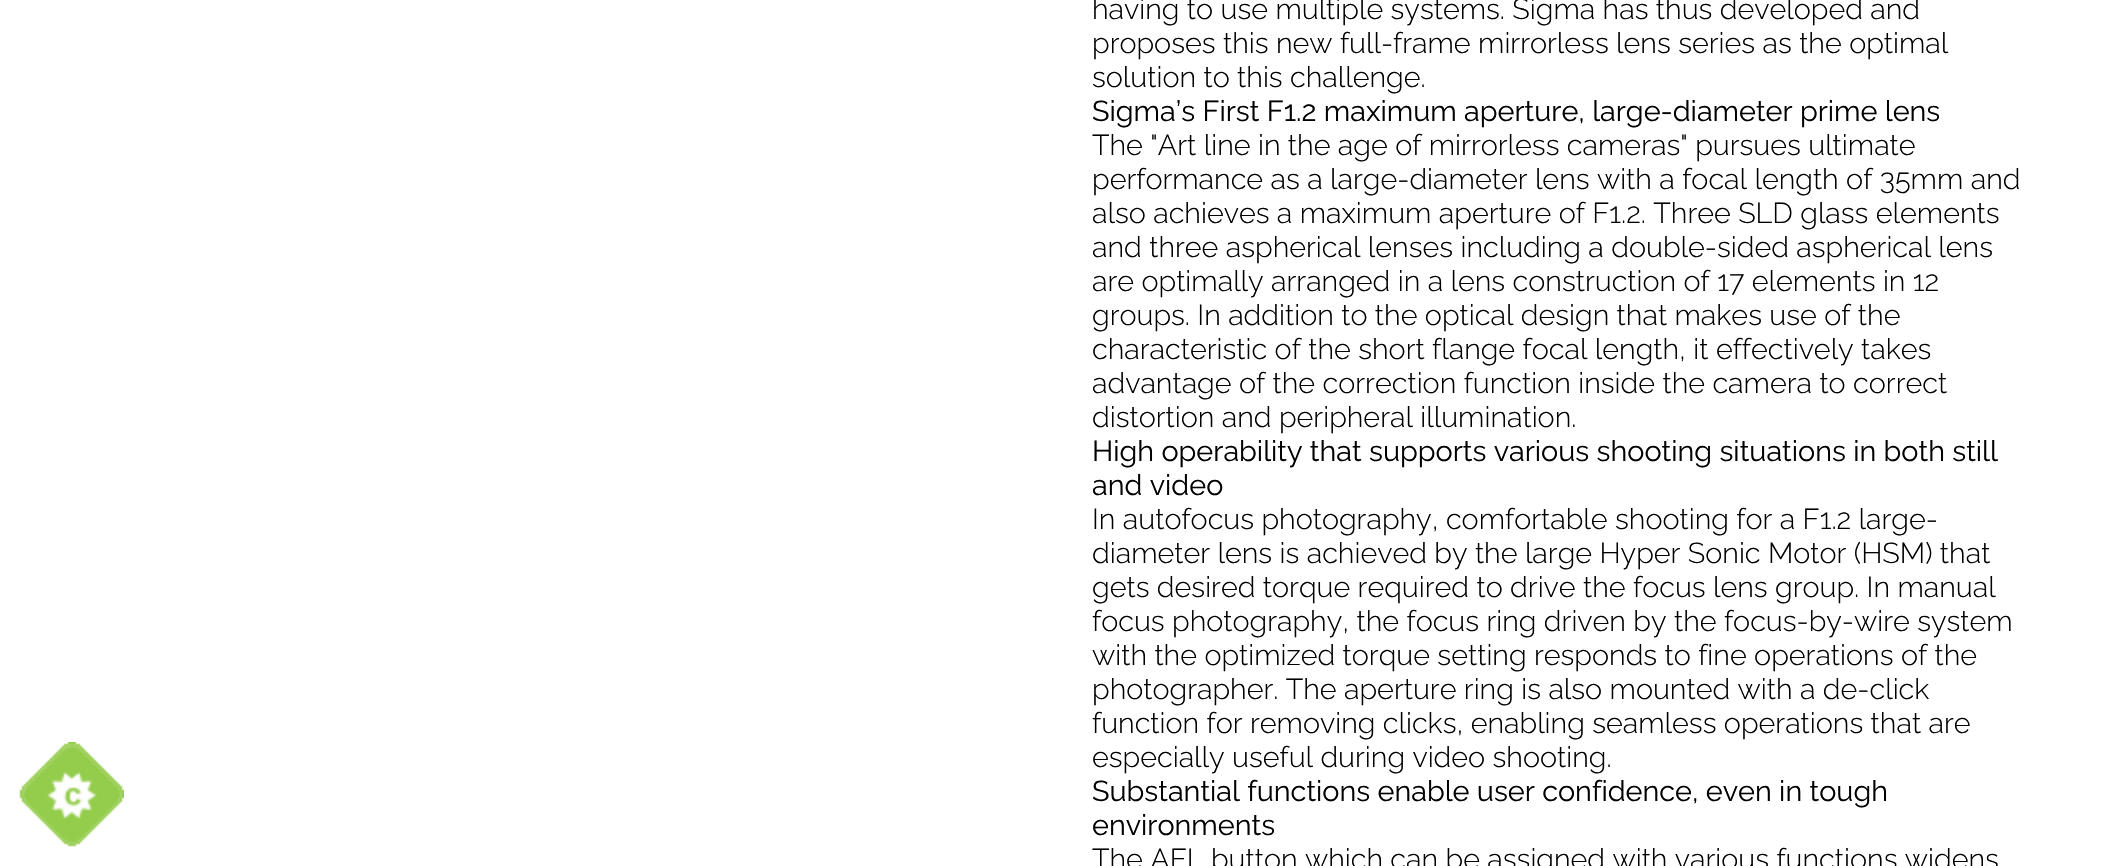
#include "include/core/SkBlurTypes.h"
#include "include/core/SkCanvas.h"
#include "include/core/SkData.h"
#include "include/core/SkFont.h"
#include "include/core/SkFontMgr.h"
#include "include/core/SkImage.h"
#include "include/core/SkMaskFilter.h"
#include "include/core/SkPaint.h"
#include "include/core/SkPathBuilder.h"
#include "include/core/SkTextBlob.h"
#include "include/effects/SkDashPathEffect.h"
#include "include/effects/SkGradientShader.h"
#include "include/utils/SkParsePath.h"

extern sk_sp<SkFontMgr> fontMgr;

void draw(SkCanvas* canvas) {
    SkPaint p;
    p.setAntiAlias(true);
    auto font = [&](const char* family, int weight, float size, bool italic = false) {
        SkFontStyle style(weight, SkFontStyle::kNormal_Width,
            italic ? SkFontStyle::kItalic_Slant : SkFontStyle::kUpright_Slant);
        SkFont result(fontMgr->matchFamilyStyle(family, style), size);
        result.setSubpixel(true);
        return result;
    };
    auto drawPhoto = [&](const char* path, float l, float t, float r, float b) {
        auto image = SkImages::DeferredFromEncodedData(SkData::MakeFromFileName(path));
        canvas->drawImageRect(image, SkRect::MakeLTRB(l, t, r, b), SkSamplingOptions());
    };
    canvas->clear(0xFFFFFFFF);
    drawPhoto("media/1.png", 19, 742, 124, 847);
    auto font1 = font("Raleway", 300, 28.8f);
    p.setColor(0xFF000000);
    {
        const struct { const char* s; float x, y; } items[] = {
            {"having to use multiple systems. Sigma has thus developed and", 1092, 19},
            {"proposes this new full-frame mirrorless lens series as the optimal", 1092, 53},
            {"solution to this challenge.", 1092, 87},
        };
        for (auto [s, x, y] : items) {
            canvas->drawString(s, x, y, font1, p);
        }
    }
    auto font2 = font("Raleway", 400, 28.8f);
    canvas->drawString("Sigma’s First F1.2 maximum aperture, large-diameter prime lens", 1092, 121, font2, p);
    {
        const struct { const char* s; float x, y; } items[] = {
            {"The \"Art line in the age of mirrorless cameras\" pursues ultimate", 1092, 155},
            {"performance as a large-diameter lens with a focal length of 35mm and", 1092, 189},
            {"also achieves a maximum aperture of F1.2. Three SLD glass elements", 1092, 223},
            {"and three aspherical lenses including a double-sided aspherical lens", 1092, 257},
            {"are optimally arranged in a lens construction of 17 elements in 12", 1092, 291},
            {"groups. In addition to the optical design that makes use of the", 1092, 325},
            {"characteristic of the short flange focal length, it effectively takes", 1092, 359},
            {"advantage of the correction function inside the camera to correct", 1092, 393},
            {"distortion and peripheral illumination.", 1092, 427},
        };
        for (auto [s, x, y] : items) {
            canvas->drawString(s, x, y, font1, p);
        }
    }
    canvas->drawString("High operability that supports various shooting situations in both still", 1092, 461, font2, p);
    canvas->drawString("and video", 1092, 495, font2, p);
    {
        const struct { const char* s; float x, y; } items[] = {
            {"In autofocus photography, comfortable shooting for a F1.2 large-", 1092, 529},
            {"diameter lens is achieved by the large Hyper Sonic Motor (HSM) that", 1092, 563},
            {"gets desired torque required to drive the focus lens group. In manual", 1092, 597},
            {"focus photography, the focus ring driven by the focus-by-wire system", 1092, 631},
            {"with the optimized torque setting responds to fine operations of the", 1092, 665},
            {"photographer. The aperture ring is also mounted with a de-click", 1092, 699},
            {"function for removing clicks, enabling seamless operations that are", 1092, 733},
            {"especially useful during video shooting.", 1092, 767},
        };
        for (auto [s, x, y] : items) {
            canvas->drawString(s, x, y, font1, p);
        }
    }
    canvas->drawString("Substantial functions enable user confidence, even in tough", 1092, 801, font2, p);
    canvas->drawString("environments", 1092, 835, font2, p);
    canvas->drawString("The AFL button which can be assigned with various functions widens", 1092, 869, font1, p);
}
